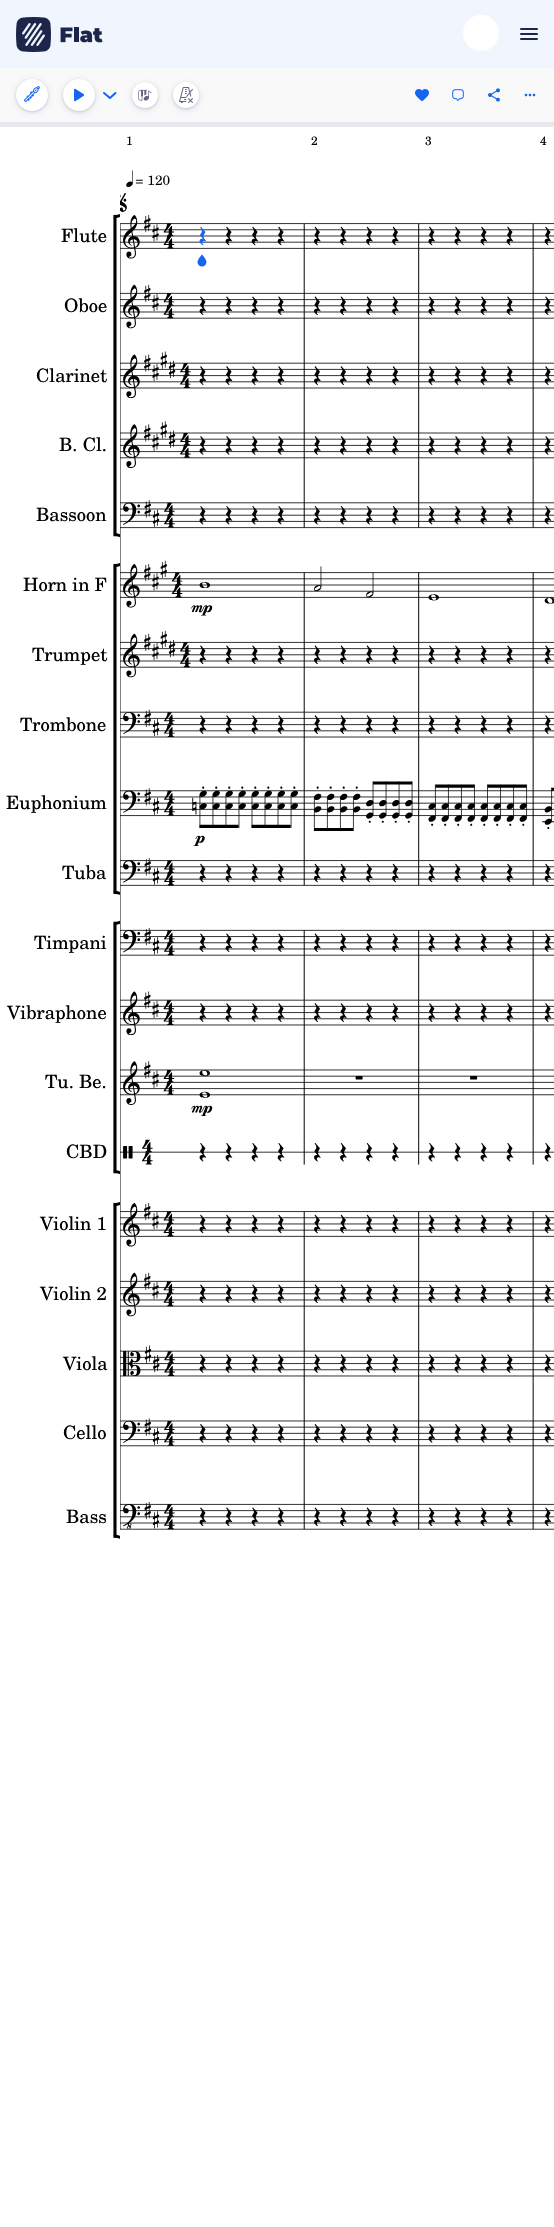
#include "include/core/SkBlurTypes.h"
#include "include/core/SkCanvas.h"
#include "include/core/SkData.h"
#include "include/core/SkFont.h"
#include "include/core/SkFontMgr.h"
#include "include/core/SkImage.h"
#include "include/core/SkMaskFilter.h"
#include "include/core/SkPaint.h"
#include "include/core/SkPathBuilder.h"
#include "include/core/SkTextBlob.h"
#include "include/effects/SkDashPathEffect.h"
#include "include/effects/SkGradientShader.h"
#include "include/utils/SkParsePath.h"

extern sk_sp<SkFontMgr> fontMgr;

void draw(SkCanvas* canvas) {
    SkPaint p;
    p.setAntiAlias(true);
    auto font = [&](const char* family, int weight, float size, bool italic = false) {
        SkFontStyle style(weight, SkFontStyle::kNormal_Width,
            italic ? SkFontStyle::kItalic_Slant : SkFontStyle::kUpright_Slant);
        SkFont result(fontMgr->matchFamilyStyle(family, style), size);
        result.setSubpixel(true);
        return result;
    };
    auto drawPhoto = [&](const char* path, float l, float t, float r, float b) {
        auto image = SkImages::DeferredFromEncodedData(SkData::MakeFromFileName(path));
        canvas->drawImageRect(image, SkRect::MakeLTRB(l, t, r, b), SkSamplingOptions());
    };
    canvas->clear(0xFFFFFFFF);
    p.setColor(0xFFF1F6FE);
    canvas->drawRect(SkRect::MakeLTRB(0, 0, 554, 68), p);
    drawPhoto("media/1.png", 16, 17, 103, 52);
    p.setColor(0xFFFFFFFF);
    canvas->drawCircle(481, 33, 18, p);
    p.setColor(0xFF1C264A);
    canvas->drawRoundRect(SkRect::MakeLTRB(520, 28, 538, 30), 1, 1, p);
    canvas->drawRoundRect(SkRect::MakeLTRB(520, 33, 538, 35), 1, 1, p);
    canvas->drawRoundRect(SkRect::MakeLTRB(520, 38, 538, 40), 1, 1, p);
    p.setColor(0xFFF9F9FA);
    canvas->drawRect(SkRect::MakeLTRB(0, 68, 554, 122), p);
    p.setColor(0x1A28304F);
    p.setMaskFilter(SkMaskFilter::MakeBlur(kNormal_SkBlurStyle, 4));
    canvas->drawRoundRect(SkRect::MakeLTRB(63, 81, 95, 113), 16, 16, p);
    p.setMaskFilter(nullptr);
    p.setMaskFilter(SkMaskFilter::MakeBlur(kNormal_SkBlurStyle, 4));
    canvas->drawRoundRect(SkRect::MakeLTRB(132, 84, 158, 110), 13, 13, p);
    p.setMaskFilter(nullptr);
    p.setMaskFilter(SkMaskFilter::MakeBlur(kNormal_SkBlurStyle, 4));
    canvas->drawRoundRect(SkRect::MakeLTRB(173, 84, 199, 110), 13, 13, p);
    p.setMaskFilter(nullptr);
    p.setColor(0xFFE7E8EC);
    canvas->drawRect(SkRect::MakeLTRB(0, 122, 554, 127), p);
    p.setColor(0x1A28304F);
    p.setMaskFilter(SkMaskFilter::MakeBlur(kNormal_SkBlurStyle, 4));
    canvas->drawRoundRect(SkRect::MakeLTRB(16, 80, 48, 112), 16, 16, p);
    p.setMaskFilter(nullptr);
    p.setColor(0x3328304F);
    p.setMaskFilter(SkMaskFilter::MakeBlur(kNormal_SkBlurStyle, 1.5f));
    canvas->drawRoundRect(SkRect::MakeLTRB(16, 80, 48, 112), 16, 16, p);
    p.setMaskFilter(nullptr);
    p.setColor(0xFFFFFFFF);
    canvas->drawCircle(32, 95, 16, p);
    drawPhoto("media/2.png", 24, 86, 40, 102);
    p.setColor(0x3328304F);
    p.setMaskFilter(SkMaskFilter::MakeBlur(kNormal_SkBlurStyle, 1.5f));
    canvas->drawRoundRect(SkRect::MakeLTRB(63, 80, 95, 112), 16, 16, p);
    p.setMaskFilter(nullptr);
    p.setColor(0xFFFFFFFF);
    canvas->drawCircle(79, 95, 16, p);
    drawPhoto("media/3.png", 74, 88, 85, 102);
    p.setStyle(SkPaint::kStroke_Style);
    p.setStrokeWidth(2);
    p.setStrokeCap(SkPaint::kRound_Cap);
    p.setStrokeJoin(SkPaint::kRound_Join);
    p.setColor(0xFF1565EF);
    canvas->drawPath(SkPathBuilder().moveTo(104, 93).lineTo(110, 98).lineTo(115.5f, 93).detach(), p);
    p.setStyle(SkPaint::kFill_Style);
    p.setColor(0x3328304F);
    p.setMaskFilter(SkMaskFilter::MakeBlur(kNormal_SkBlurStyle, 1.5f));
    canvas->drawRoundRect(SkRect::MakeLTRB(132, 83, 158, 109), 13, 13, p);
    p.setMaskFilter(nullptr);
    p.setColor(0xFFFFFFFF);
    canvas->drawCircle(145, 95, 13, p);
    drawPhoto("media/4.png", 138, 89, 152, 101);
    p.setColor(0x3328304F);
    p.setMaskFilter(SkMaskFilter::MakeBlur(kNormal_SkBlurStyle, 1.5f));
    canvas->drawRoundRect(SkRect::MakeLTRB(173, 83, 199, 109), 13, 13, p);
    p.setMaskFilter(nullptr);
    p.setColor(0xFFFFFFFF);
    canvas->drawCircle(186, 95, 13, p);
    drawPhoto("media/5.png", 179, 87, 193, 103);
    drawPhoto("media/6.png", 415, 89, 429, 101);
    drawPhoto("media/7.png", 452, 89, 464, 101);
    drawPhoto("media/8.png", 488, 88, 500, 102);
    drawPhoto("media/9.png", 524, 93, 536, 97);
    auto font1 = font("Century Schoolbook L", 400, 12);
    p.setColor(0xFF000000);
    {
        const struct { const char* s; float x, y; } items[] = {
            {"1", 126, 145},
            {"2", 311, 145},
            {"3", 425, 145},
            {"4", 540, 145},
        };
        for (auto [s, x, y] : items) {
            canvas->drawString(s, x, y, font1, p);
        }
    }
    {
        const SkColor colors[] = {0xFF919191, 0xFFFFFFFF};
        const float stops[] = {0, 1};
        SkMatrix m = SkMatrix::Translate(120, 1192).preScale(11, 1040);
        p.setShader(SkGradientShader::MakeRadial({0, 0}, 1, colors, stops, 2, SkTileMode::kClamp, 0, &m));
        p.setAlpha(255);
    }
    canvas->drawRect(SkRect::MakeLTRB(129, 716, 131, 1668), p);
    {
        const SkColor colors[] = {0xFFFFFFFF, 0xFFFFFFFF, 0x80FFFFFF};
        const float stops[] = {0, 0.02f, 0.05f};
        const SkPoint ends[] = {{120, 1192}, {554, 1192}};
        p.setShader(SkGradientShader::MakeLinear(ends, colors, stops, 3, SkTileMode::kClamp));
        p.setAlpha(255);
    }
    canvas->drawRect(SkRect::MakeLTRB(129, 716, 131, 1668), p);
    drawPhoto("media/10.png", 120, 170, 554, 1530);
    drawPhoto("media/11.png", 113, 214, 120, 1539);
    auto font2 = font("Century Schoolbook L", 400, 18.5f);
    p.setShader(nullptr);
    p.setColor(0xFF000000);
    {
        const struct { const char* s; float x, y; } items[] = {
            {"Flute", 61, 242},
            {"Oboe", 64, 312},
            {"Clarinet", 36, 382},
            {"B. Cl.", 59, 451},
            {"Bassoon", 36, 521},
            {"Horn in F", 23, 591},
            {"Trumpet", 32, 661},
            {"Trombone", 20, 731},
            {"Euphonium", 6, 809},
            {"Tuba", 62, 879},
            {"Timpani", 34, 949},
            {"Vibraphone", 7, 1019},
            {"Tu. Be.", 45, 1088},
            {"CBD", 66, 1158},
            {"Violin 1", 40, 1230},
            {"Violin 2", 40, 1300},
            {"Viola", 63, 1370},
            {"Cello", 63, 1439},
            {"Bass", 66, 1523},
        };
        for (auto [s, x, y] : items) {
            canvas->drawString(s, x, y, font2, p);
        }
    }
}
